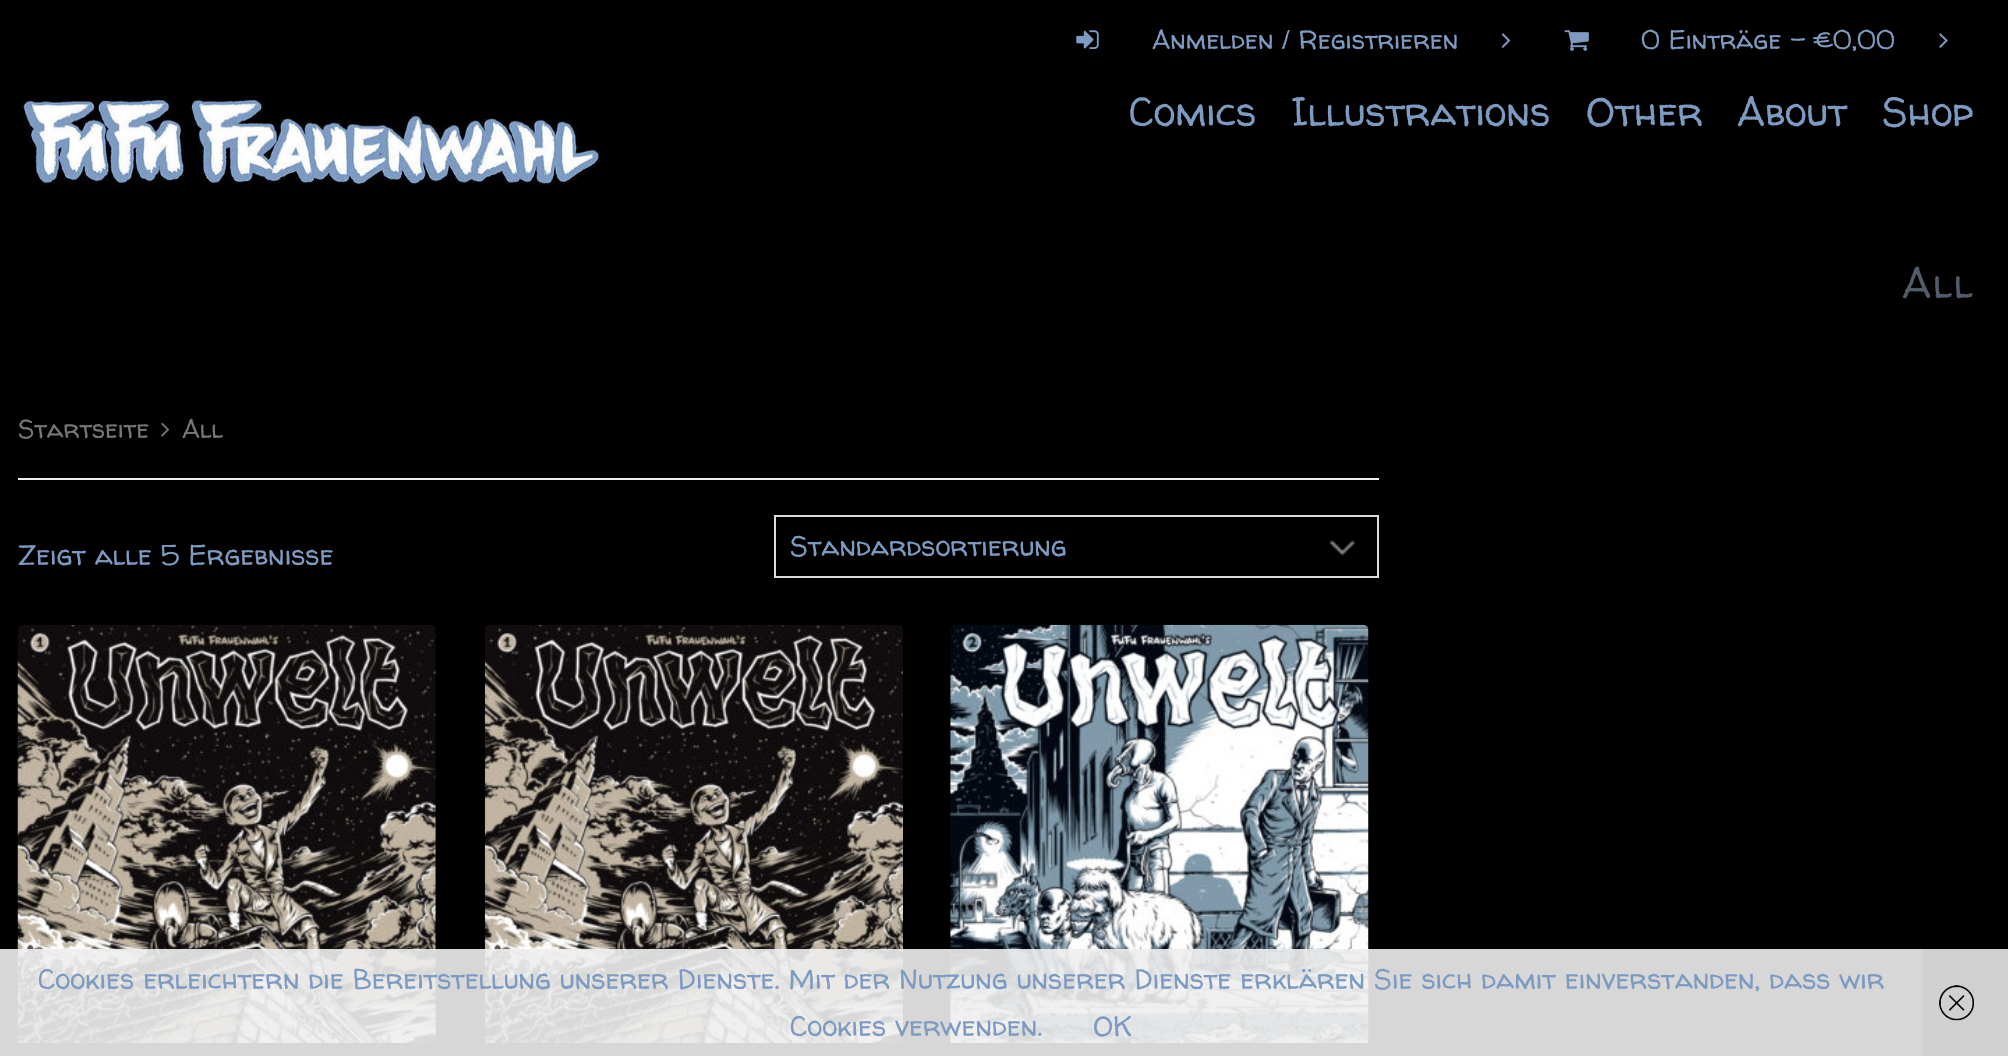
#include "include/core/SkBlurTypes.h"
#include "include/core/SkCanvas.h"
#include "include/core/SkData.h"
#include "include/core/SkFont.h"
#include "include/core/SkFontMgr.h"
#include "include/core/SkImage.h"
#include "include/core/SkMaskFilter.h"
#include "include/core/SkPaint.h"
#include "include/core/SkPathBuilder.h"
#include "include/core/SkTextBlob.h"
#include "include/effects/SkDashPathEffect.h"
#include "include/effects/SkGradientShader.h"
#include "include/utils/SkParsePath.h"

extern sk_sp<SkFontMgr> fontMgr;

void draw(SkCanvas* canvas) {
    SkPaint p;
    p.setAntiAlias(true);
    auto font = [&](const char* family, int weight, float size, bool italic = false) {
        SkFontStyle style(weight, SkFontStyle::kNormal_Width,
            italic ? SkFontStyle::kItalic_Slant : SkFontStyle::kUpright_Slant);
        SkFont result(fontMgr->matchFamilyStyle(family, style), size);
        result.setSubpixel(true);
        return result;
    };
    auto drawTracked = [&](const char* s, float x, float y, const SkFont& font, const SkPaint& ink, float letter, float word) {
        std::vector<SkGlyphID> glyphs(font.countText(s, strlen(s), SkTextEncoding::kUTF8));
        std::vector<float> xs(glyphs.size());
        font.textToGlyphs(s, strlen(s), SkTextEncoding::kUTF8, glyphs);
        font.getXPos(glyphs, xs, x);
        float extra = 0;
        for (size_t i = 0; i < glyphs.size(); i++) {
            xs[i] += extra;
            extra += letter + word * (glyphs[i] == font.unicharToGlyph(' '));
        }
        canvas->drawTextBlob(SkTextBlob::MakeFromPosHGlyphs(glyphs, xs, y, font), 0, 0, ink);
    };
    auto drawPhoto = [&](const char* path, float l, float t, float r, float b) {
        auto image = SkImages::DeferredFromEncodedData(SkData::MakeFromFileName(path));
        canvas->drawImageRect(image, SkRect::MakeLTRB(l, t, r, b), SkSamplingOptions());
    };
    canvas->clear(0xFF000000);
    drawPhoto("media/1.png", 1076, 30, 1099, 49);
    auto font1 = font("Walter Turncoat", 400, 26.25f);
    p.setColor(0xFF7D9BC1);
    canvas->drawString("Anmelden / Registrieren", 1152, 49, font1, p);
    drawPhoto("media/2.png", 1501, 33, 1511, 48);
    drawPhoto("media/3.png", 1564, 30, 1589, 51);
    {
        const struct { const char* s; float x, y; } items[] = {
            {"0 Einträge", 1641, 49},
            {"-", 1790, 49},
            {"€0,00", 1813, 49},
        };
        for (auto [s, x, y] : items) {
            canvas->drawString(s, x, y, font1, p);
        }
    }
    drawPhoto("media/4.png", 1939, 33, 1948, 48);
    drawPhoto("media/5.png", 22, 96, 604, 186);
    auto font2 = font("Walter Turncoat", 400, 40.25f);
    {
        const struct { const char* s; float x, y; } items[] = {
            {"Comics", 1129, 126},
            {"Illustrations", 1291, 126},
            {"Other", 1586, 126},
            {"About", 1737, 126},
            {"Shop", 1882, 126},
        };
        for (auto [s, x, y] : items) {
            canvas->drawString(s, x, y, font2, p);
        }
    }
    auto font3 = font("Walter Turncoat", 400, 42);
    p.setColor(0xFF515B69);
    drawTracked("All", 1902, 298, font3, p, 2, 0);
    p.setColor(0xFFEEEEEE);
    canvas->drawRect(SkRect::MakeLTRB(18, 478, 1379, 480), p);
    auto font4 = font("Walter Turncoat", 400, 25.75f);
    p.setColor(0xFF767676);
    canvas->drawString("Startseite", 18, 438, font4, p);
    drawPhoto("media/6.png", 161, 422, 170, 437);
    canvas->drawString("All", 182, 438, font4, p);
    auto font5 = font("Walter Turncoat", 400, 28);
    p.setColor(0xFF7D9BC1);
    canvas->drawString("Zeigt alle 5 Ergebnisse", 18, 565, font5, p);
    drawPhoto("media/7.png", 1329, 540, 1355, 556);
    p.setStyle(SkPaint::kStroke_Style);
    p.setStrokeWidth(2);
    p.setColor(0xFFDDDDDD);
    canvas->drawRect(SkRect::MakeLTRB(775, 516, 1378, 577), p);
    p.setStyle(SkPaint::kFill_Style);
    p.setColor(0xFF7D9BC1);
    canvas->drawString("Standardsortierung", 790, 556, font5, p);
    drawPhoto("media/8.png", 17, 624, 436, 1043);
    drawPhoto("media/9.png", 484, 624, 903, 1043);
    drawPhoto("media/10.png", 950, 624, 1369, 1043);
    p.setColor(0xE6EEEEEE);
    canvas->drawRect(SkRect::MakeLTRB(0, 949, 1922, 1056), p);
    p.setColor(0xFF7D9BC1);
    {
        const struct { const char* s; float x, y; } items[] = {
            {"Cookies erleichtern die Bereitstellung unserer Dienste. Mit der Nutzung unserer Dienste erklären Sie sich damit einverstanden, dass wir", 38, 989},
            {"Cookies verwenden.", 790, 1036},
            {"OK", 1093, 1036},
        };
        for (auto [s, x, y] : items) {
            canvas->drawString(s, x, y, font5, p);
        }
    }
    p.setColor(0xFFD0D0D0);
    canvas->drawRect(SkRect::MakeLTRB(1922, 949, 2008, 1056), p);
    drawPhoto("media/11.png", 1939, 985, 1974, 1021);
}
